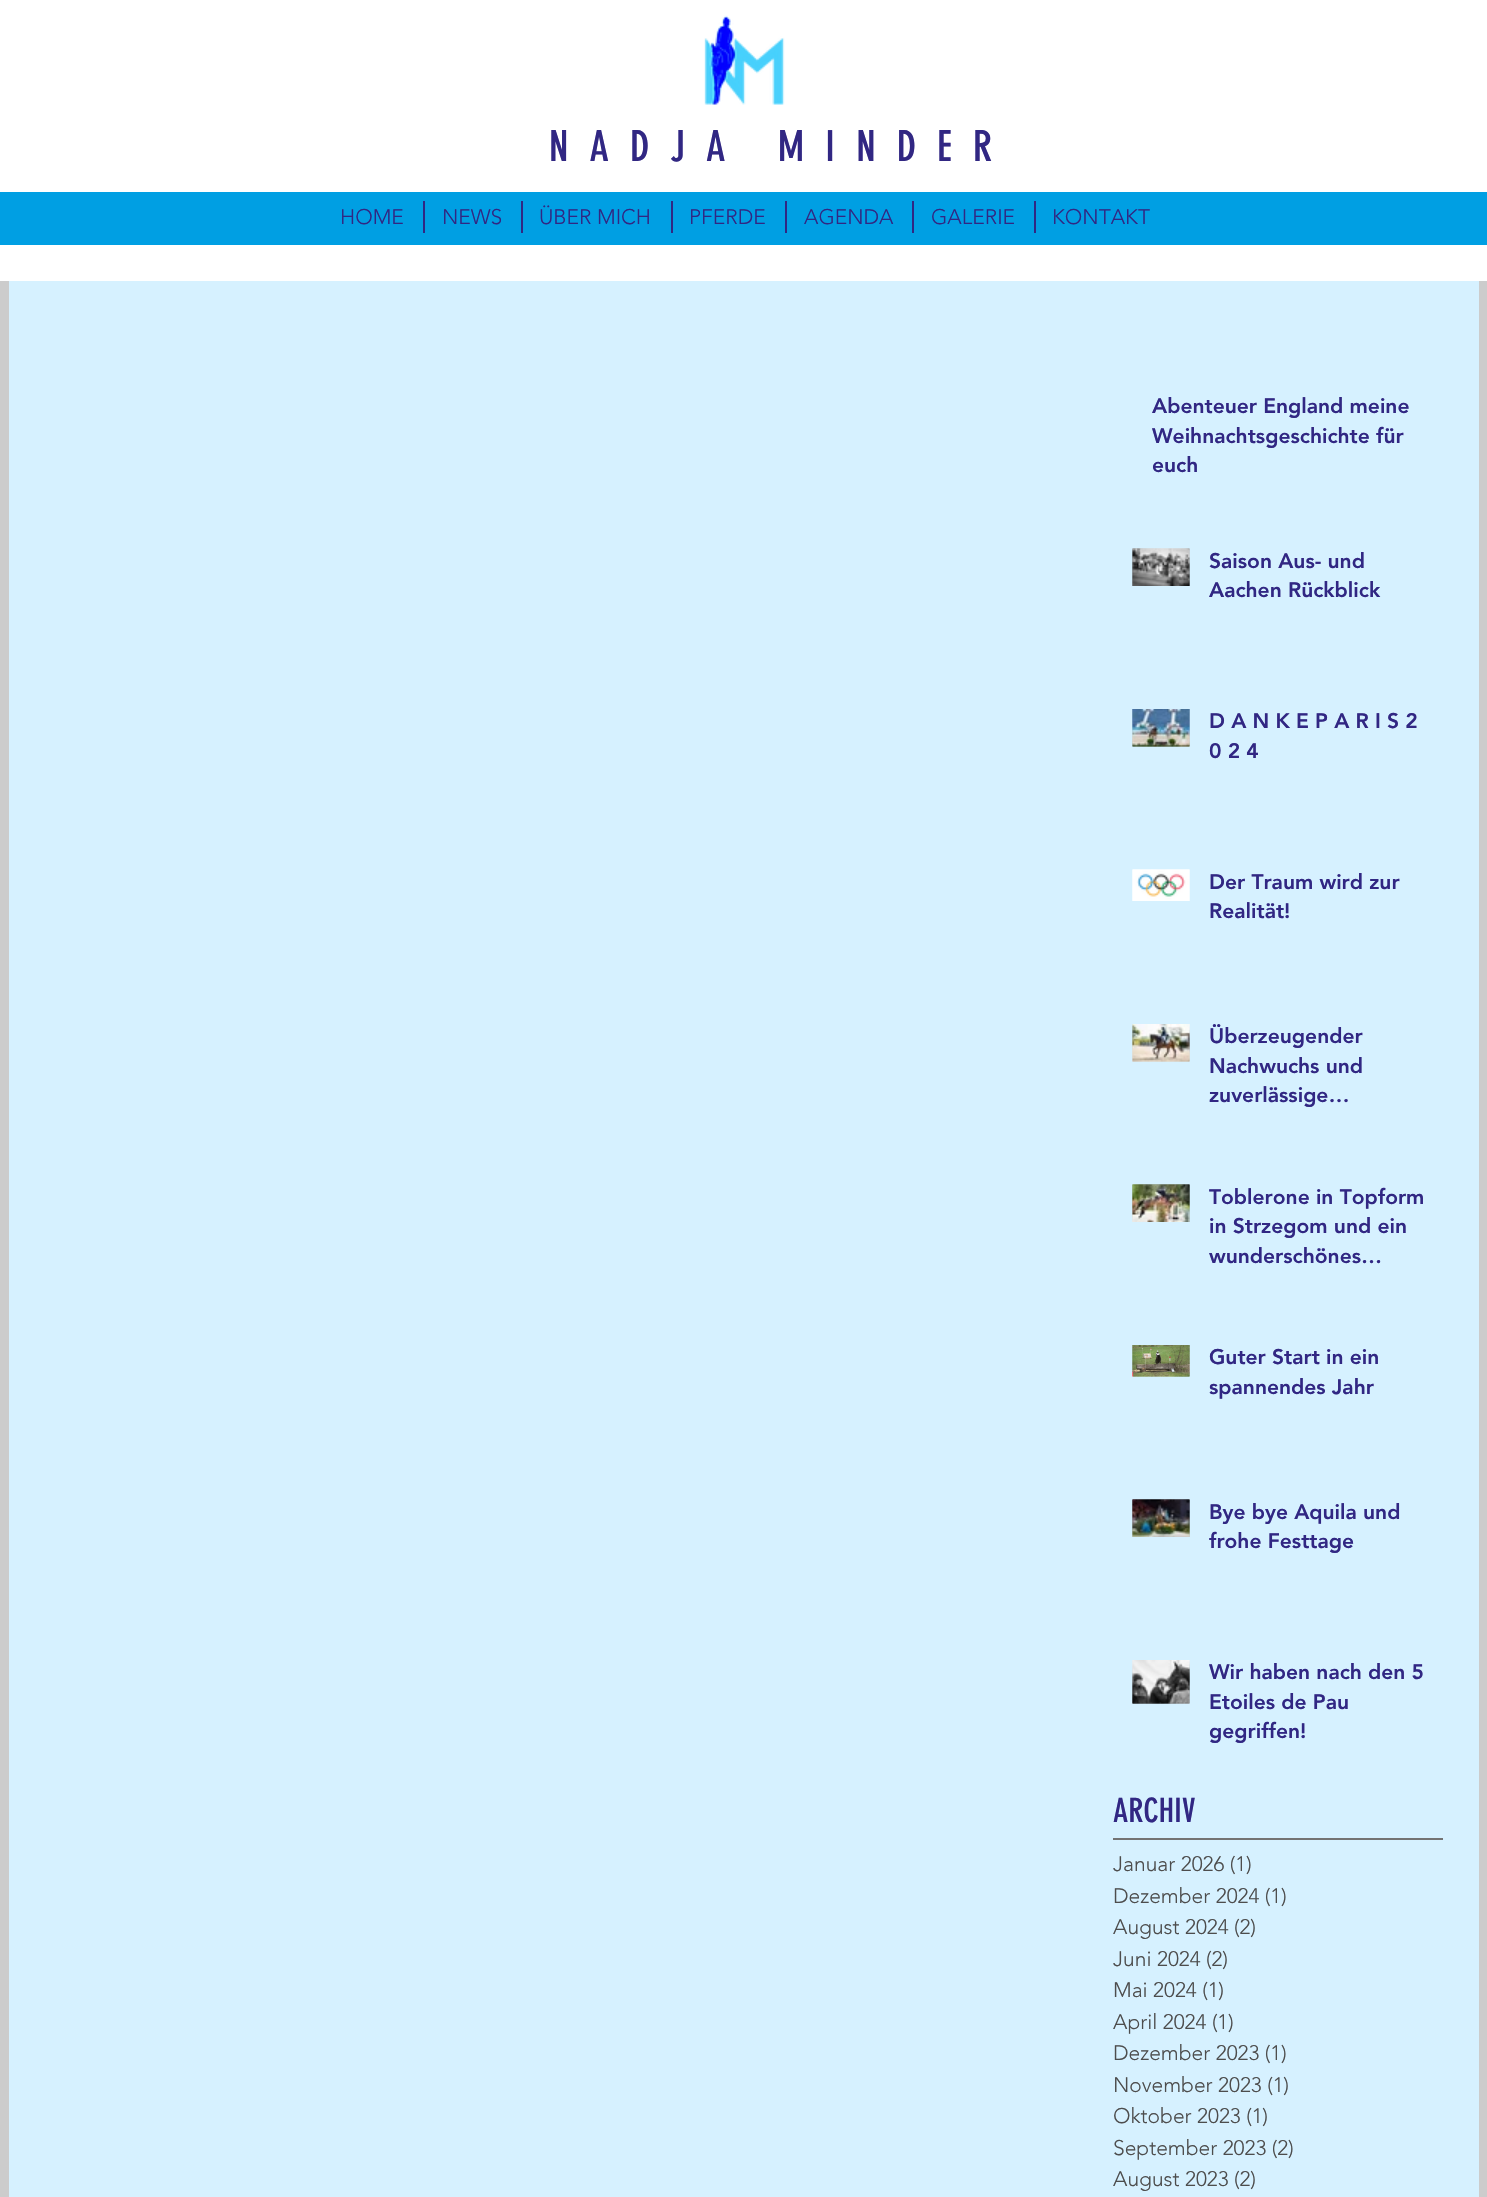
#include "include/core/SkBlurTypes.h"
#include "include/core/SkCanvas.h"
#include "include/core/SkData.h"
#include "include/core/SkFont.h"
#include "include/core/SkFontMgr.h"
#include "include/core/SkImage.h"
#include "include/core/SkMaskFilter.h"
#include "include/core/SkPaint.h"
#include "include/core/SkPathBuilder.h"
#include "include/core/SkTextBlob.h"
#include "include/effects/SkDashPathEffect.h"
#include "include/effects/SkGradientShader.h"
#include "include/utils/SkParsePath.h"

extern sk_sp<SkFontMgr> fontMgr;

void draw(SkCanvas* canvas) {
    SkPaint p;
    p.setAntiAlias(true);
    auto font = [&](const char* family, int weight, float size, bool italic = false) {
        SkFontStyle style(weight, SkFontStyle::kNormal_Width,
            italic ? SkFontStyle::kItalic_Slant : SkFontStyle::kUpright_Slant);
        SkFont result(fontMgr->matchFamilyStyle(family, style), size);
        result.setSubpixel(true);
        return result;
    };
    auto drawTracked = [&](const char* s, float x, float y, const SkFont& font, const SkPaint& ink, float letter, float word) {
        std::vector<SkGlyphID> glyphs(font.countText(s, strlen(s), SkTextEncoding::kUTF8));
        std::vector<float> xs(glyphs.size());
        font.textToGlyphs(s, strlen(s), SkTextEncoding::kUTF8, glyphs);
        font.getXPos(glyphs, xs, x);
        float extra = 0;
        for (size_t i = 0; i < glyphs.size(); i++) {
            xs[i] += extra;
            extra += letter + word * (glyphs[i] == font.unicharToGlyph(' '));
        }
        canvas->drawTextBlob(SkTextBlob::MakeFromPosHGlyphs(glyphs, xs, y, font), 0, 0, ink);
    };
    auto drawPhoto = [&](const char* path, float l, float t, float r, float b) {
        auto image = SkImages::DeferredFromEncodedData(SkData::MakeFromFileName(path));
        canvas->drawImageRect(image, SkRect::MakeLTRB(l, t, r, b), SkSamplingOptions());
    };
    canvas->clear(0xFFCCCCCC);
    p.setColor(0xFFFFFFFF);
    canvas->drawRect(SkRect::MakeLTRB(0, 0, 1487, 281), p);
    drawPhoto("media/1.png", 704, 15, 785, 105);
    auto font1 = font("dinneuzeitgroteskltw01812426", 400, 42);
    p.setColor(0xFF312783);
    drawTracked("NADJA MINDER", 549, 161, font1, p, 21, 0);
    p.setColor(0xFF009FE3);
    canvas->drawRect(SkRect::MakeLTRB(0, 192, 1487, 245), p);
    auto font2 = font("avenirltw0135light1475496", 300, 21);
    p.setColor(0xFF312783);
    canvas->drawString("HOME", 340, 224, font2, p);
    canvas->drawRect(SkRect::MakeLTRB(423, 201, 425, 233), p);
    canvas->drawString("NEWS", 442, 224, font2, p);
    canvas->drawRect(SkRect::MakeLTRB(521, 201, 523, 233), p);
    canvas->drawString("ÜBER MICH", 539, 224, font2, p);
    canvas->drawRect(SkRect::MakeLTRB(671, 201, 673, 233), p);
    canvas->drawString("PFERDE", 689, 224, font2, p);
    canvas->drawRect(SkRect::MakeLTRB(785, 201, 787, 233), p);
    canvas->drawString("AGENDA", 804, 224, font2, p);
    canvas->drawRect(SkRect::MakeLTRB(912, 201, 914, 233), p);
    canvas->drawString("GALERIE", 931, 224, font2, p);
    canvas->drawRect(SkRect::MakeLTRB(1034, 201, 1036, 233), p);
    canvas->drawString("KONTAKT", 1052, 224, font2, p);
    p.setColor(0xFFD6F1FF);
    canvas->drawRect(SkRect::MakeLTRB(9, 281, 1479, 2197), p);
    auto font3 = font("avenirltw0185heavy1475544", 900, 21);
    p.setColor(0xFF312783);
    {
        const struct { const char* s; float x, y; } items[] = {
            {"Abenteuer England meine", 1152, 413},
            {"Weihnachtsgeschichte für", 1152, 443},
            {"euch", 1152, 472},
        };
        for (auto [s, x, y] : items) {
            canvas->drawString(s, x, y, font3, p);
        }
    }
    drawPhoto("media/2.png", 1132, 548, 1190, 586);
    drawPhoto("media/3.png", 1132, 548, 1190, 586);
    canvas->drawString("Saison Aus- und", 1209, 568, font3, p);
    canvas->drawString("Aachen Rückblick", 1209, 597, font3, p);
    drawPhoto("media/4.png", 1132, 709, 1190, 747);
    drawPhoto("media/5.png", 1132, 709, 1190, 747);
    canvas->drawString("D A N K E P A R I S 2", 1209, 728, font3, p);
    canvas->drawString("0 2 4", 1209, 758, font3, p);
    drawPhoto("media/6.png", 1132, 869, 1190, 901);
    drawPhoto("media/7.png", 1132, 869, 1190, 901);
    canvas->drawString("Der Traum wird zur", 1209, 889, font3, p);
    canvas->drawString("Realität!", 1209, 918, font3, p);
    drawPhoto("media/8.png", 1132, 1024, 1190, 1062);
    drawPhoto("media/9.png", 1132, 1024, 1190, 1062);
    {
        const struct { const char* s; float x, y; } items[] = {
            {"Überzeugender", 1209, 1043},
            {"Nachwuchs und", 1209, 1073},
            {"zuverlässige…", 1209, 1102},
        };
        for (auto [s, x, y] : items) {
            canvas->drawString(s, x, y, font3, p);
        }
    }
    drawPhoto("media/10.png", 1132, 1184, 1190, 1222);
    drawPhoto("media/11.png", 1132, 1184, 1190, 1222);
    {
        const struct { const char* s; float x, y; } items[] = {
            {"Toblerone in Topform", 1209, 1204},
            {"in Strzegom und ein", 1209, 1233},
            {"wunderschönes…", 1209, 1263},
        };
        for (auto [s, x, y] : items) {
            canvas->drawString(s, x, y, font3, p);
        }
    }
    drawPhoto("media/12.png", 1132, 1345, 1190, 1377);
    drawPhoto("media/13.png", 1132, 1345, 1190, 1377);
    canvas->drawString("Guter Start in ein", 1209, 1364, font3, p);
    canvas->drawString("spannendes Jahr", 1209, 1394, font3, p);
    drawPhoto("media/14.png", 1132, 1499, 1190, 1537);
    drawPhoto("media/15.png", 1132, 1499, 1190, 1537);
    canvas->drawString("Bye bye Aquila und", 1209, 1519, font3, p);
    canvas->drawString("frohe Festtage", 1209, 1548, font3, p);
    drawPhoto("media/16.png", 1132, 1660, 1190, 1704);
    drawPhoto("media/17.png", 1132, 1660, 1190, 1704);
    {
        const struct { const char* s; float x, y; } items[] = {
            {"Wir haben nach den 5", 1209, 1679},
            {"Etoiles de Pau", 1209, 1709},
            {"gegriffen!", 1209, 1738},
        };
        for (auto [s, x, y] : items) {
            canvas->drawString(s, x, y, font3, p);
        }
    }
    auto font4 = font("dinneuzeitgroteskltw01812426", 400, 33);
    canvas->drawString("ARCHIV", 1113, 1822, font4, p);
    p.setColor(0xFF737373);
    canvas->drawRect(SkRect::MakeLTRB(1113, 1838, 1443, 1840), p);
    p.setColor(0xFF4D4D4D);
    {
        const struct { const char* s; float x, y; } items[] = {
            {"Januar 2026 (1)", 1113, 1871},
            {"Dezember 2024 (1)", 1113, 1903},
            {"August 2024 (2)", 1113, 1934},
            {"Juni 2024 (2)", 1113, 1966},
            {"Mai 2024 (1)", 1113, 1997},
            {"April 2024 (1)", 1113, 2029},
            {"Dezember 2023 (1)", 1113, 2060},
            {"November 2023 (1)", 1113, 2092},
            {"Oktober 2023 (1)", 1113, 2123},
            {"September 2023 (2)", 1113, 2155},
            {"August 2023 (2)", 1113, 2186},
        };
        for (auto [s, x, y] : items) {
            canvas->drawString(s, x, y, font2, p);
        }
    }
}
